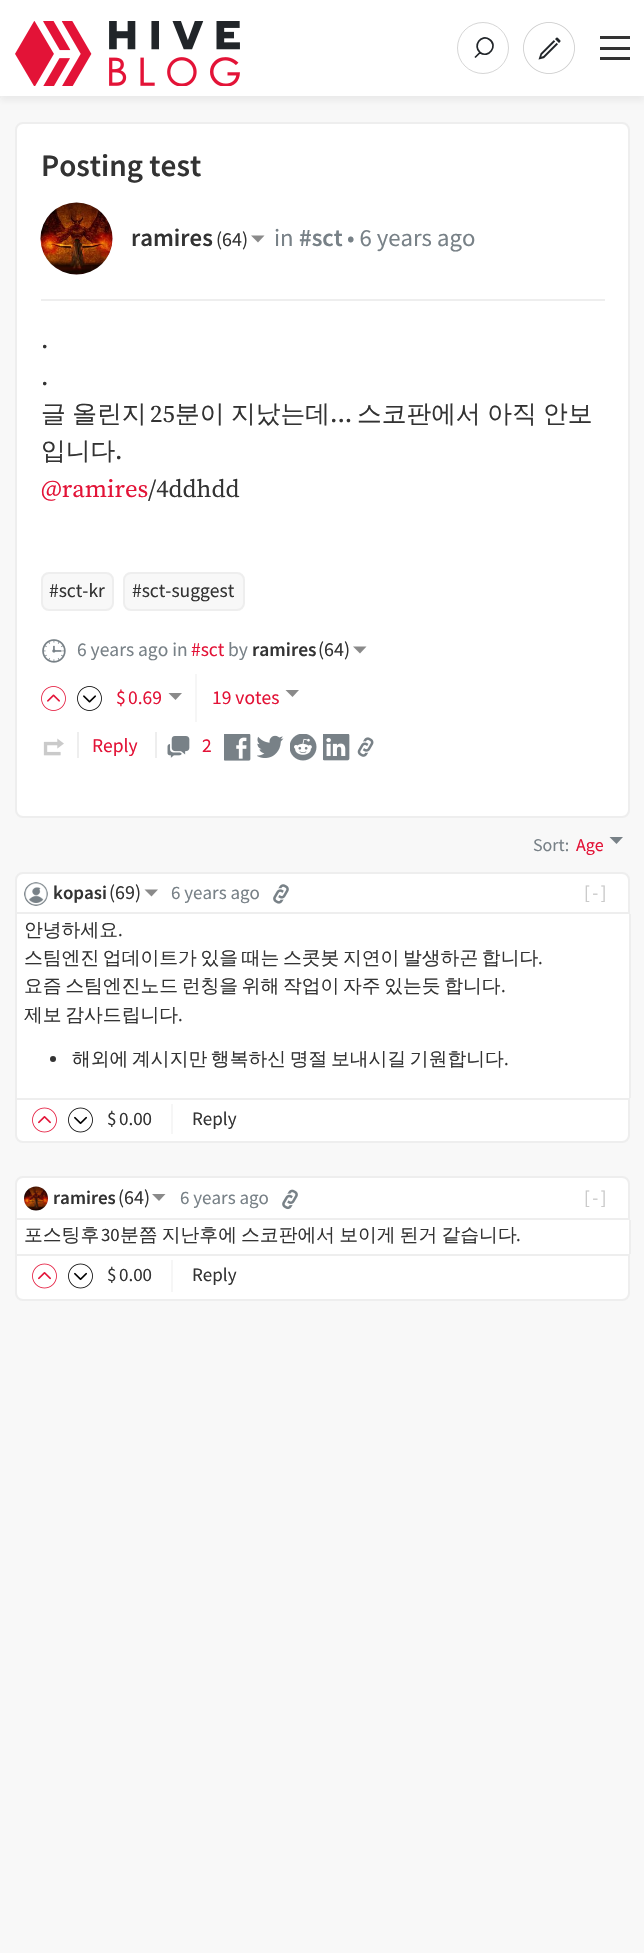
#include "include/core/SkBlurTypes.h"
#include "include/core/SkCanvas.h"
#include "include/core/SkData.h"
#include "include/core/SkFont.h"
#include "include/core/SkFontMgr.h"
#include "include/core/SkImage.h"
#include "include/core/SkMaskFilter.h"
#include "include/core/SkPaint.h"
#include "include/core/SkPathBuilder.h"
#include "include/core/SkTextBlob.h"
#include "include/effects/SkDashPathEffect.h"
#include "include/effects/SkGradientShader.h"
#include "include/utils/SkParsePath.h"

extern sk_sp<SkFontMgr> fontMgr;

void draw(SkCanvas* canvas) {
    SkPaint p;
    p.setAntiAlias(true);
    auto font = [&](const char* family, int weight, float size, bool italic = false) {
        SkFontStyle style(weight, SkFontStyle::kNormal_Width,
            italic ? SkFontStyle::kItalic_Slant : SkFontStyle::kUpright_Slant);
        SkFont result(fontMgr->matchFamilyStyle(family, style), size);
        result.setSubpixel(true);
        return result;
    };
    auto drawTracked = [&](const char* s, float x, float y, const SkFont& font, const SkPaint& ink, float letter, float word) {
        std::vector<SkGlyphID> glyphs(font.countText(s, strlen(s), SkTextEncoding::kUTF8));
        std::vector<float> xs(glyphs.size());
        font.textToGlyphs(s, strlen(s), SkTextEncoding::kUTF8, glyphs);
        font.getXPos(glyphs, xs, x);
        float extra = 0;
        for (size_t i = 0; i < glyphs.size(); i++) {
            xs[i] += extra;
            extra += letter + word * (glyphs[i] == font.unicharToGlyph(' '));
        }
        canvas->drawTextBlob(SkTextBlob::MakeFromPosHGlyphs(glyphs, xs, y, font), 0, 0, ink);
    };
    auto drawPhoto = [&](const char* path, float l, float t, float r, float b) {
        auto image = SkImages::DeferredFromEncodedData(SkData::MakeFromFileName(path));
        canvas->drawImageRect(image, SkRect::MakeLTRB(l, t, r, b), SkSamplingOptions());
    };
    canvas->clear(0xFFF8F8F8);
    p.setColor(0x0D000000);
    p.setMaskFilter(SkMaskFilter::MakeBlur(kNormal_SkBlurStyle, 3));
    canvas->drawRect(SkRect::MakeLTRB(0, 3, 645, 101), p);
    p.setMaskFilter(nullptr);
    p.setColor(0xFFFFFFFF);
    canvas->drawRect(SkRect::MakeLTRB(0, 0, 644, 96), p);
    p.setColor(0xFFEEEEEE);
    canvas->drawRect(SkRect::MakeLTRB(0, 96, 1, 98), p);
    drawPhoto("media/1.png", 15, 21, 240, 86);
    p.setStyle(SkPaint::kStroke_Style);
    p.setStrokeWidth(0.8f);
    p.setColor(0xFFCACACA);
    canvas->drawCircle(483, 48, 25.5f, p);
    p.setStrokeWidth(1.7f);
    p.setColor(0xFF212529);
    canvas->drawPath(SkPathBuilder().moveTo(480, 52.5f).lineTo(475, 57.5f).lineTo(480, 52.5f).cubicTo(472.5f, 46, 481, 33.5f, 489.5f, 39.5f).cubicTo(498.5f, 45.5f, 488.5f, 59, 480, 52.5f).close().detach(), p);
    drawPhoto("media/2.png", 523, 22, 575, 74);
    p.setStyle(SkPaint::kFill_Style);
    {
        const struct { float l, t, r, b; SkColor color; } items[] = {
            {600, 57, 630, 60, 0xFF333333},
            {600, 47, 630, 50, 0xFF333333},
            {600, 36, 630, 39, 0xFF333333},
        };
        for (auto [l, t, r, b, color] : items) {
            p.setColor(color);
            canvas->drawRect(SkRect::MakeLTRB(l, t, r, b), p);
        }
    }
    p.setColor(0xFFFFFFFF);
    canvas->drawRoundRect(SkRect::MakeLTRB(16, 123, 629, 817), 7, 7, p);
    p.setStyle(SkPaint::kStroke_Style);
    p.setStrokeWidth(2);
    p.setColor(0xFFEEEEEE);
    canvas->drawRoundRect(SkRect::MakeLTRB(16, 123, 629, 817), 7, 7, p);
    p.setStyle(SkPaint::kFill_Style);
    canvas->drawRect(SkRect::MakeLTRB(41, 299, 605, 301), p);
    auto font1 = font("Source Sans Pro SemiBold", 600, 31.25f);
    p.setColor(0xFF333333);
    canvas->drawString("Posting test", 41, 176, font1, p);
    drawPhoto("media/3.png", 40, 202, 113, 275);
    auto font2 = font("Source Sans Pro SemiBold", 600, 24.75f);
    canvas->drawString("ramires", 131, 246, font2, p);
    auto font3 = font("Source Sans Pro", 400, 20);
    canvas->drawString("(64)", 216, 246, font3, p);
    p.setColor(0xFF8A8A8A);
    canvas->drawPath(SkPathBuilder().moveTo(251, 235.5f).lineTo(258, 242.5f).lineTo(264.5f, 235.5f).close().detach(), p);
    auto font4 = font("Source Sans Pro", 400, 24.75f);
    p.setColor(0xFF788187);
    canvas->drawString("in", 274, 246, font4, p);
    canvas->drawString("#sct", 299, 246, font2, p);
    canvas->drawString("• 6 years ago", 347, 246, font4, p);
    auto font5 = font("Source Serif Pro", 400, 24.75f);
    p.setColor(0xFF333333);
    canvas->drawString(".", 41, 348, font5, p);
    canvas->drawString(".", 41, 385, font5, p);
    auto font6 = font("WenQuanYi Zen Hei", 500, 24.75f);
    drawTracked("글 올린지", 41, 422, font6, p, 0, -1);
    canvas->drawString("25", 150, 422, font5, p);
    drawTracked("분이 지났는데", 175, 422, font6, p, 0, -1);
    canvas->drawString("...", 330, 422, font5, p);
    drawTracked("스코판에서 아직 안보", 357, 422, font6, p, 0, -1);
    canvas->drawString("입니다", 41, 459, font6, p);
    canvas->drawString(".", 115, 459, font5, p);
    p.setColor(0xFFE31337);
    canvas->drawString("@ramires", 41, 497, font5, p);
    p.setColor(0xFF333333);
    canvas->drawString("/4ddhdd", 148, 497, font5, p);
    p.setColor(0xFFF8F8F8);
    canvas->drawRoundRect(SkRect::MakeLTRB(42, 573, 113, 610), 7, 7, p);
    p.setStyle(SkPaint::kStroke_Style);
    p.setColor(0xFFEEEEEE);
    canvas->drawRoundRect(SkRect::MakeLTRB(42, 573, 113, 610), 7, 7, p);
    auto font7 = font("Source Sans Pro", 400, 19.5f);
    p.setStyle(SkPaint::kFill_Style);
    p.setColor(0xFF333333);
    canvas->drawString("#sct-kr", 49, 597, font7, p);
    p.setColor(0xFFF8F8F8);
    canvas->drawRoundRect(SkRect::MakeLTRB(124, 573, 244, 610), 7, 7, p);
    p.setStyle(SkPaint::kStroke_Style);
    p.setColor(0xFFEEEEEE);
    canvas->drawRoundRect(SkRect::MakeLTRB(124, 573, 244, 610), 7, 7, p);
    p.setStyle(SkPaint::kFill_Style);
    p.setColor(0xFF333333);
    canvas->drawString("#sct-suggest", 132, 597, font7, p);
    drawPhoto("media/4.png", 42, 639, 66, 663);
    p.setColor(0xFF788187);
    canvas->drawString("6 years ago in", 77, 656, font7, p);
    p.setColor(0xFFE31337);
    canvas->drawString("#sct", 191, 656, font7, p);
    p.setColor(0xFF788187);
    canvas->drawString("by", 228, 656, font7, p);
    auto font8 = font("Source Sans Pro SemiBold", 600, 19.5f);
    p.setColor(0xFF333333);
    canvas->drawString("ramires", 252, 656, font8, p);
    canvas->drawString("(64)", 318, 656, font3, p);
    p.setColor(0xFF8A8A8A);
    canvas->drawPath(SkPathBuilder().moveTo(353, 646.5f).lineTo(360, 653.5f).lineTo(366.5f, 646.5f).close().detach(), p);
    p.setColor(0xFFF6F6F6);
    canvas->drawRect(SkRect::MakeLTRB(195, 674, 197, 722), p);
    drawPhoto("media/5.png", 41, 686, 66, 711);
    drawPhoto("media/6.png", 77, 686, 102, 711);
    p.setColor(0xFFE31337);
    canvas->drawString("$", 116, 704, font7, p);
    canvas->drawString("0.69", 128, 704, font7, p);
    p.setColor(0xFF8A8A8A);
    canvas->drawPath(SkPathBuilder().moveTo(168.5f, 693).lineTo(175.5f, 700).lineTo(182, 693).close().detach(), p);
    p.setColor(0xFFE31337);
    canvas->drawString("19 votes", 212, 704, font7, p);
    p.setColor(0xFF8A8A8A);
    canvas->drawPath(SkPathBuilder().moveTo(285.5f, 690).lineTo(292.5f, 697).lineTo(299, 690).close().detach(), p);
    p.setColor(0xFFEEEEEE);
    canvas->drawRect(SkRect::MakeLTRB(77, 732, 79, 758), p);
    drawPhoto("media/7.png", 43, 738, 64, 756);
    p.setColor(0xFFE31337);
    canvas->drawString("Reply", 92, 752, font7, p);
    p.setColor(0xFFEEEEEE);
    canvas->drawRect(SkRect::MakeLTRB(155, 732, 157, 758), p);
    drawPhoto("media/8.png", 167, 736, 190, 758);
    p.setColor(0xFFE31337);
    canvas->drawString("2", 202, 752, font7, p);
    drawPhoto("media/9.png", 224, 734, 251, 761);
    drawPhoto("media/10.png", 257, 735, 284, 758);
    drawPhoto("media/11.png", 290, 734, 317, 761);
    drawPhoto("media/12.png", 323, 734, 350, 761);
    drawPhoto("media/13.png", 357, 737, 374, 757);
    auto font9 = font("Source Sans Pro", 400, 18);
    p.setColor(0xFF788187);
    canvas->drawString("Sort:", 533, 851, font9, p);
    p.setColor(0xFFE31337);
    canvas->drawString("Age", 576, 851, font9, p);
    p.setColor(0xFF788187);
    canvas->drawPath(SkPathBuilder().moveTo(609.5f, 837).lineTo(616.5f, 844).lineTo(623, 837).close().detach(), p);
    p.setColor(0xFFFFFFFF);
    canvas->drawPath(SkPathBuilder().moveTo(23, 873).lineTo(622, 873).cubicTo(626, 873, 629, 876, 629, 880).lineTo(629, 913).lineTo(16, 913).lineTo(16, 880).cubicTo(16, 876, 19, 873, 23, 873).close().detach(), p);
    p.setStyle(SkPaint::kStroke_Style);
    p.setColor(0xFFEEEEEE);
    canvas->drawPath(SkPathBuilder().moveTo(23, 873).lineTo(622, 873).cubicTo(626, 873, 629, 876, 629, 880).lineTo(629, 913).lineTo(16, 913).lineTo(16, 880).cubicTo(16, 876, 19, 873, 23, 873).close().detach(), p);
    drawPhoto("media/14.png", 24, 882, 48, 906);
    auto font10 = font("Source Sans Pro SemiBold", 600, 19);
    p.setStyle(SkPaint::kFill_Style);
    p.setColor(0xFF333333);
    canvas->drawString("kopasi", 53, 899, font10, p);
    canvas->drawString("(69)", 109, 899, font3, p);
    p.setColor(0xFF8A8A8A);
    canvas->drawPath(SkPathBuilder().moveTo(144.5f, 889.5f).lineTo(151.5f, 896.5f).lineTo(158, 889.5f).close().detach(), p);
    auto font11 = font("Source Sans Pro", 400, 19);
    p.setColor(0xFF788187);
    canvas->drawString("6 years ago", 171, 899, font11, p);
    drawPhoto("media/15.png", 273, 884, 289, 904);
    p.setColor(0xFFCACACA);
    drawTracked("[-]", 584, 899, font11, p, 2.5f, 0);
    {
        const struct { float l, t, r, b; SkColor color; } items[] = {
            {17, 914, 629, 1098, 0xFFFFFFFF},
            {629, 914, 631, 1098, 0xFFEEEEEE},
            {15, 914, 17, 1098, 0xFFEEEEEE},
        };
        for (auto [l, t, r, b, color] : items) {
            p.setColor(color);
            canvas->drawRect(SkRect::MakeLTRB(l, t, r, b), p);
        }
    }
    auto font12 = font("WenQuanYi Zen Hei", 500, 18.8f);
    p.setColor(0xFF333333);
    canvas->drawString("안녕하세요", 24, 936, font12, p);
    auto font13 = font("Source Sans Pro", 400, 18.8f);
    canvas->drawString(".", 118, 936, font13, p);
    drawTracked("스팀엔진 업데이트가 있을 때는 스콧봇 지연이 발생하곤 합니다", 24, 964, font12, p, 0, -2);
    canvas->drawString(".", 538, 964, font13, p);
    drawTracked("요즘 스팀엔진노드 런칭을 위해 작업이 자주 있는듯 합니다", 24, 992, font12, p, 0, -2);
    canvas->drawString(".", 501, 992, font13, p);
    drawTracked("제보 감사드립니다", 24, 1021, font12, p, 0, -2);
    canvas->drawString(".", 178, 1021, font13, p);
    canvas->drawCircle(53, 1059, 3, p);
    drawTracked("해외에 계시지만 행복하신 명절 보내시길 기원합니다", 72, 1065, font12, p, 0, -2);
    canvas->drawString(".", 504, 1065, font13, p);
    p.setColor(0xFFFFFFFF);
    canvas->drawPath(SkPathBuilder().moveTo(16, 1099).lineTo(629, 1099).lineTo(629, 1135).cubicTo(629, 1139, 626, 1142, 622, 1142).lineTo(23, 1142).cubicTo(19, 1142, 16, 1139, 16, 1135).close().detach(), p);
    p.setStyle(SkPaint::kStroke_Style);
    p.setColor(0xFFEEEEEE);
    canvas->drawPath(SkPathBuilder().moveTo(16, 1099).lineTo(629, 1099).lineTo(629, 1135).cubicTo(629, 1139, 626, 1142, 622, 1142).lineTo(23, 1142).cubicTo(19, 1142, 16, 1139, 16, 1135).close().detach(), p);
    p.setStyle(SkPaint::kFill_Style);
    p.setColor(0xFFF6F6F6);
    canvas->drawRect(SkRect::MakeLTRB(171, 1104, 173, 1134), p);
    drawPhoto("media/16.png", 32, 1107, 57, 1133);
    drawPhoto("media/17.png", 68, 1107, 93, 1133);
    p.setColor(0xFF333333);
    {
        const struct { const char* s; float x, y; } items[] = {
            {"$", 107, 1125},
            {"0.00", 119, 1125},
            {"Reply", 192, 1125},
        };
        for (auto [s, x, y] : items) {
            canvas->drawString(s, x, y, font11, p);
        }
    }
    p.setColor(0xFFFFFFFF);
    canvas->drawPath(SkPathBuilder().moveTo(23, 1177).lineTo(622, 1177).cubicTo(626, 1177, 629, 1180, 629, 1184).lineTo(629, 1219).lineTo(16, 1219).lineTo(16, 1184).cubicTo(16, 1180, 19, 1177, 23, 1177).close().detach(), p);
    p.setStyle(SkPaint::kStroke_Style);
    p.setColor(0xFFEEEEEE);
    canvas->drawPath(SkPathBuilder().moveTo(23, 1177).lineTo(622, 1177).cubicTo(626, 1177, 629, 1180, 629, 1184).lineTo(629, 1219).lineTo(16, 1219).lineTo(16, 1184).cubicTo(16, 1180, 19, 1177, 23, 1177).close().detach(), p);
    drawPhoto("media/18.png", 24, 1186, 48, 1211);
    p.setStyle(SkPaint::kFill_Style);
    p.setColor(0xFF333333);
    canvas->drawString("ramires", 53, 1204, font10, p);
    canvas->drawString("(64)", 118, 1204, font3, p);
    p.setColor(0xFF8A8A8A);
    canvas->drawPath(SkPathBuilder().moveTo(152, 1194).lineTo(159, 1201).lineTo(165.5f, 1194).close().detach(), p);
    p.setColor(0xFF788187);
    canvas->drawString("6 years ago", 180, 1204, font11, p);
    drawPhoto("media/19.png", 282, 1189, 298, 1210);
    p.setColor(0xFFCACACA);
    drawTracked("[-]", 584, 1204, font11, p, 2.5f, 0);
    {
        const struct { float l, t, r, b; SkColor color; } items[] = {
            {17, 1220, 629, 1254, 0xFFFFFFFF},
            {629, 1220, 631, 1254, 0xFFEEEEEE},
            {15, 1220, 17, 1254, 0xFFEEEEEE},
        };
        for (auto [l, t, r, b, color] : items) {
            p.setColor(color);
            canvas->drawRect(SkRect::MakeLTRB(l, t, r, b), p);
        }
    }
    p.setColor(0xFF333333);
    canvas->drawString("포스팅후", 24, 1241, font12, p);
    canvas->drawString("30", 101, 1241, font13, p);
    drawTracked("분쯤 지난후에 스코판에서 보이게 된거 같습니다", 120, 1241, font12, p, 0, -1.5f);
    canvas->drawString(".", 516, 1241, font13, p);
    p.setColor(0xFFFFFFFF);
    canvas->drawPath(SkPathBuilder().moveTo(16, 1255).lineTo(629, 1255).lineTo(629, 1293).cubicTo(629, 1297, 626, 1300, 622, 1300).lineTo(23, 1300).cubicTo(19, 1300, 16, 1297, 16, 1293).close().detach(), p);
    p.setStyle(SkPaint::kStroke_Style);
    p.setColor(0xFFEEEEEE);
    canvas->drawPath(SkPathBuilder().moveTo(16, 1255).lineTo(629, 1255).lineTo(629, 1293).cubicTo(629, 1297, 626, 1300, 622, 1300).lineTo(23, 1300).cubicTo(19, 1300, 16, 1297, 16, 1293).close().detach(), p);
    p.setStyle(SkPaint::kFill_Style);
    p.setColor(0xFFF6F6F6);
    canvas->drawRect(SkRect::MakeLTRB(171, 1260, 173, 1292), p);
    drawPhoto("media/16.png", 32, 1263, 57, 1289);
    drawPhoto("media/17.png", 68, 1263, 93, 1289);
    p.setColor(0xFF333333);
    {
        const struct { const char* s; float x, y; } items[] = {
            {"$", 107, 1281},
            {"0.00", 119, 1281},
            {"Reply", 192, 1281},
        };
        for (auto [s, x, y] : items) {
            canvas->drawString(s, x, y, font11, p);
        }
    }
}
